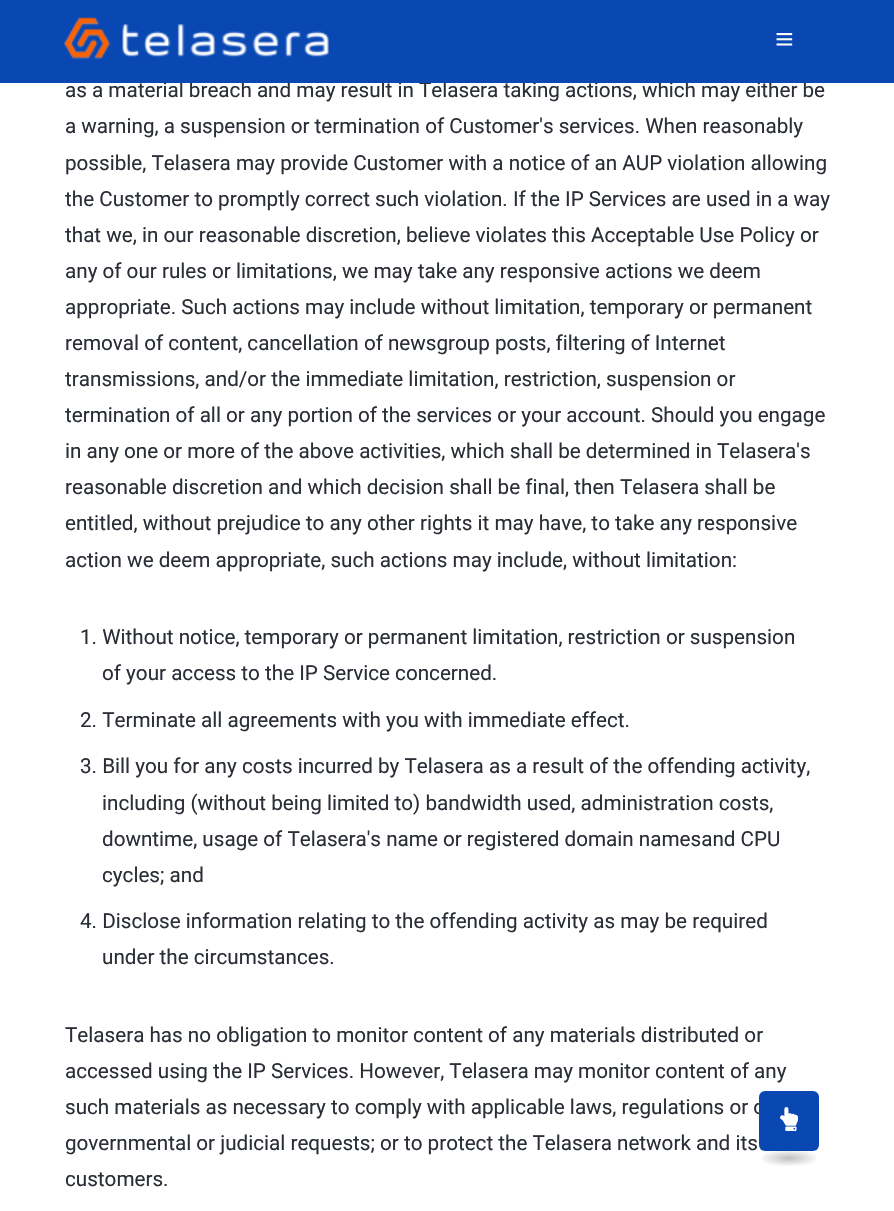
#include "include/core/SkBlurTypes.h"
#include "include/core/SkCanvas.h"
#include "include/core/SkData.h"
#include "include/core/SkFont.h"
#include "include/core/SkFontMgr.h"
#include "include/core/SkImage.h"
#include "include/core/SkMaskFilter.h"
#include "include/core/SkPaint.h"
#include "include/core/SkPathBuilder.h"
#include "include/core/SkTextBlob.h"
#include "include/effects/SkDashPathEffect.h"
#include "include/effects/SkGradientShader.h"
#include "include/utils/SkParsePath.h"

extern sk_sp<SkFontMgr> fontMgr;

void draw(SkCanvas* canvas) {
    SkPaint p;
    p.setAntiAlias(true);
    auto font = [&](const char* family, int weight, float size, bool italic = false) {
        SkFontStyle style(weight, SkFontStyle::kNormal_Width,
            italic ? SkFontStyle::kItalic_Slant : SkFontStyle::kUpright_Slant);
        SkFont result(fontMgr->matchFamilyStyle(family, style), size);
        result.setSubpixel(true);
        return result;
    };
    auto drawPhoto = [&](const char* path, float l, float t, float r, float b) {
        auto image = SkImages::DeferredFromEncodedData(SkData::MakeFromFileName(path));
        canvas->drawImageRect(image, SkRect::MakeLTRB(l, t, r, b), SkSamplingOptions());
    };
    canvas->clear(0xFFFFFFFF);
    auto font1 = font("Roboto", 400, 20.65f);
    p.setColor(0xFF2A2E36);
    canvas->drawString("as a material breach and may result in Telasera taking actions, which may either be", 65, 97, font1, p);
    p.setColor(0xFF0948B3);
    canvas->drawRect(SkRect::MakeLTRB(0, 0, 894, 83), p);
    drawPhoto("media/1.png", 64, 17, 329, 60);
    drawPhoto("media/2.png", 776, 33, 793, 46);
    p.setColor(0xFF2A2E36);
    {
        const struct { const char* s; float x, y; } items[] = {
            {"a warning, a suspension or termination of Customer's services. When reasonably", 65, 133},
            {"possible, Telasera may provide Customer with a notice of an AUP violation allowing", 65, 170},
            {"the Customer to promptly correct such violation. If the IP Services are used in a way", 65, 206},
            {"that we, in our reasonable discretion, believe violates this Acceptable Use Policy or", 65, 242},
            {"any of our rules or limitations, we may take any responsive actions we deem", 65, 278},
            {"appropriate. Such actions may include without limitation, temporary or permanent", 65, 314},
            {"removal of content, cancellation of newsgroup posts, filtering of Internet", 65, 350},
            {"transmissions, and/or the immediate limitation, restriction, suspension or", 65, 386},
            {"termination of all or any portion of the services or your account. Should you engage", 65, 422},
            {"in any one or more of the above activities, which shall be determined in Telasera's", 65, 458},
            {"reasonable discretion and which decision shall be final, then Telasera shall be", 65, 494},
            {"entitled, without prejudice to any other rights it may have, to take any responsive", 65, 530},
            {"action we deem appropriate, such actions may include, without limitation:", 65, 567},
            {"1. Without notice, temporary or permanent limitation, restriction or suspension", 80, 644},
            {"of your access to the IP Service concerned.", 102, 680},
            {"2. Terminate all agreements with you with immediate effect.", 80, 727},
            {"3. Bill you for any costs incurred by Telasera as a result of the offending activity,", 80, 773},
            {"including (without being limited to) bandwidth used, administration costs,", 102, 810},
            {"downtime, usage of Telasera's name or registered domain namesand CPU", 102, 846},
            {"cycles; and", 102, 882},
            {"4. Disclose information relating to the offending activity as may be required", 80, 928},
            {"under the circumstances.", 102, 964},
            {"Telasera has no obligation to monitor content of any materials distributed or", 65, 1042},
            {"accessed using the IP Services. However, Telasera may monitor content of any", 65, 1078},
            {"such materials as necessary to comply with applicable laws, regulations or o", 65, 1114},
            {"governmental or judicial requests; or to protect the Telasera network and its", 65, 1150},
            {"customers.", 65, 1186},
        };
        for (auto [s, x, y] : items) {
            canvas->drawString(s, x, y, font1, p);
        }
    }
    p.setColor(0xFF0948B3);
    canvas->drawRoundRect(SkRect::MakeLTRB(759, 1091, 819, 1151), 6, 6, p);
    drawPhoto("media/3.png", 780, 1107, 799, 1131);
    {
        const SkColor colors[] = {0xFFBFBFBF, 0xFFFFFFFF};
        const float stops[] = {0, 0.8f};
        SkMatrix m = SkMatrix::Translate(789, 1158).preScale(38, 11);
        p.setShader(SkGradientShader::MakeRadial({0, 0}, 1, colors, stops, 2, SkTileMode::kClamp, 0, &m));
        p.setAlpha(255);
    }
    canvas->drawRect(SkRect::MakeLTRB(762, 1151, 816, 1166), p);
}
